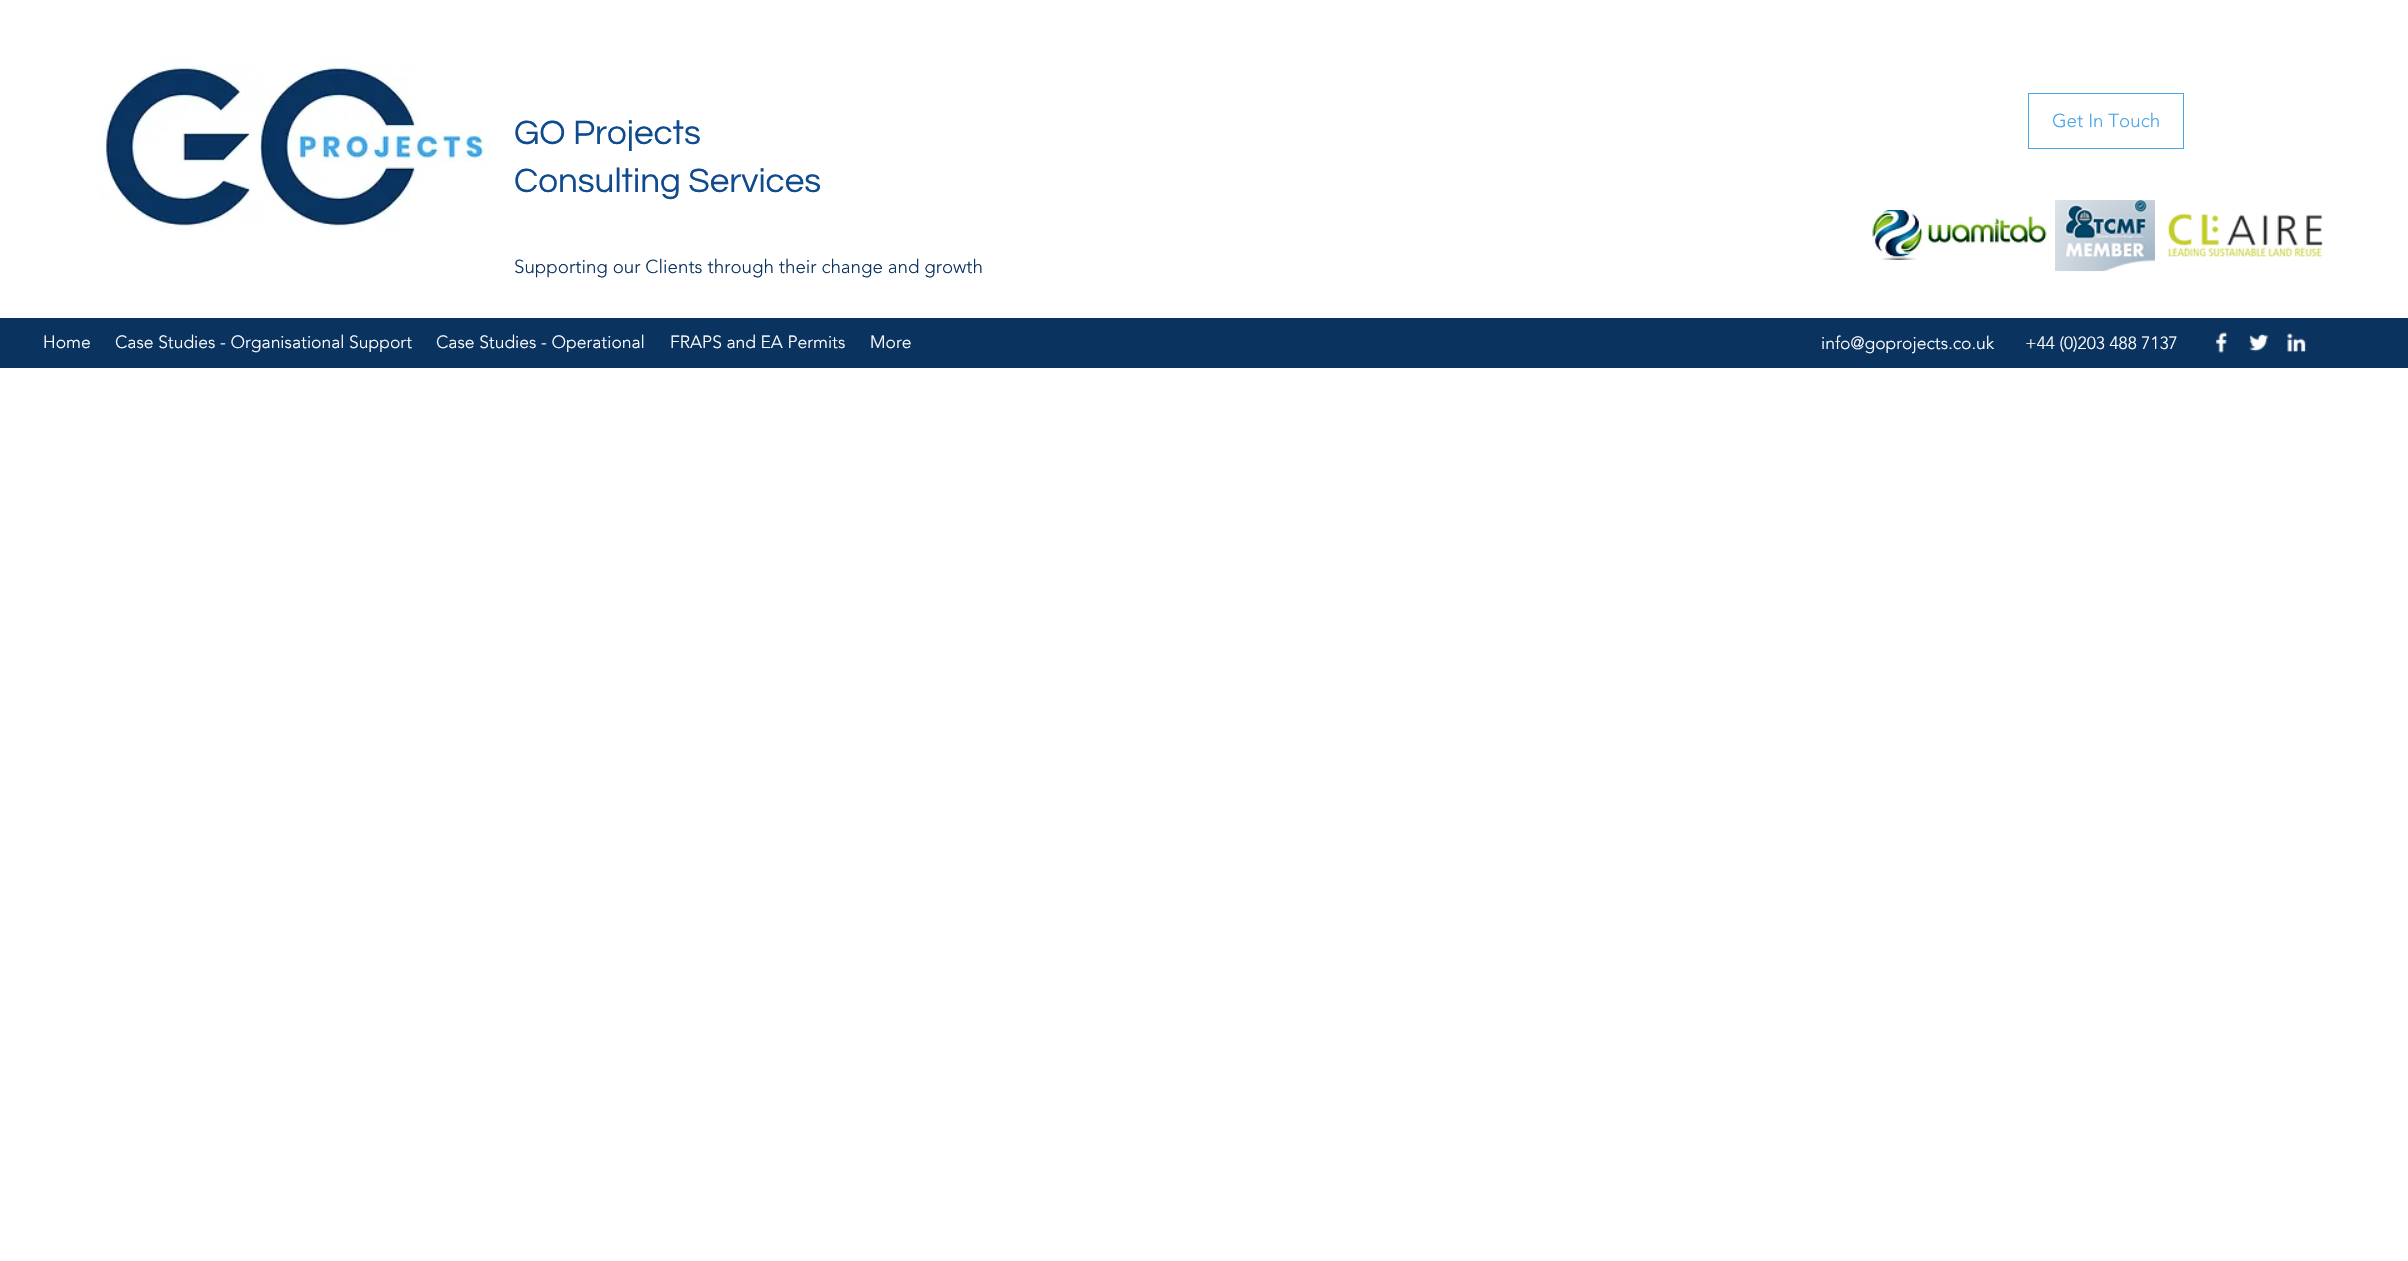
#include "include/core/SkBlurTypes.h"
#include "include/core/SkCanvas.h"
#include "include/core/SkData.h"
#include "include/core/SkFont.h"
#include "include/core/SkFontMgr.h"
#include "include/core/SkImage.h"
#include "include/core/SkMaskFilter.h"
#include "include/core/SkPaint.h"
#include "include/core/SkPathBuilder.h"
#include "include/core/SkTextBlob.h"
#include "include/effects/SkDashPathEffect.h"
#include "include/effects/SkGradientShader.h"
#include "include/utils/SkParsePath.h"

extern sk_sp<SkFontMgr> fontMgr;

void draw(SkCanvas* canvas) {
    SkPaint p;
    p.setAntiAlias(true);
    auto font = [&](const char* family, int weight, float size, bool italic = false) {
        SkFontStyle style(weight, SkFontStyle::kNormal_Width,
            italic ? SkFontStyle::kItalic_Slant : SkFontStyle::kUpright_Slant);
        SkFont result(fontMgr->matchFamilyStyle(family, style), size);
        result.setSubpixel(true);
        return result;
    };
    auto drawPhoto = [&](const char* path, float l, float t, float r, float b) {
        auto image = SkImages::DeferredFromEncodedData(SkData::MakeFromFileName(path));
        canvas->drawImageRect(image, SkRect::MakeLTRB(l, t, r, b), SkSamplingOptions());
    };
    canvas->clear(0xFFFFFFFF);
    drawPhoto("media/1.png", 100, 61, 490, 232);
    auto font1 = font("Questrial", 400, 35);
    p.setColor(0xFF104B8E);
    canvas->drawString("GO Projects", 514, 144, font1, p);
    canvas->drawString("Consulting Services", 514, 192, font1, p);
    auto font2 = font("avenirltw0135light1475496", 300, 18.75f);
    p.setColor(0xFF0B3360);
    canvas->drawString("Supporting our Clients through their change and growth", 514, 273, font2, p);
    p.setStyle(SkPaint::kStroke_Style);
    p.setStrokeWidth(1);
    p.setColor(0xFF4BA6E6);
    canvas->drawRect(SkRect::MakeLTRB(2028.5f, 93.5f, 2183.5f, 148.5f), p);
    p.setStyle(SkPaint::kFill_Style);
    canvas->drawString("Get In Touch", 2052, 127, font2, p);
    drawPhoto("media/2.png", 1872, 210, 2047, 260);
    drawPhoto("media/3.png", 2055, 200, 2155, 272);
    drawPhoto("media/4.png", 2168, 213, 2323, 257);
    p.setColor(0xFF0B3360);
    canvas->drawRect(SkRect::MakeLTRB(0, 318, 2408, 368), p);
    auto font3 = font("avenirltw0135light1475496", 300, 17.5f);
    p.setColor(0xFFFFFFFF);
    {
        const struct { const char* s; float x, y; } items[] = {
            {"Home", 43, 348},
            {"Case Studies - Organisational Support", 115, 348},
            {"Case Studies - Operational", 436, 348},
            {"FRAPS and EA Permits", 670, 348},
            {"More", 870, 348},
            {"info@goprojects.co.uk", 1821, 349},
            {"+44 (0)203 488 7137", 2025, 349},
        };
        for (auto [s, x, y] : items) {
            canvas->drawString(s, x, y, font3, p);
        }
    }
    drawPhoto("media/5.png", 2216, 332, 2227, 353);
    drawPhoto("media/6.png", 2249, 333, 2269, 352);
    drawPhoto("media/7.png", 2287, 333, 2306, 352);
}
